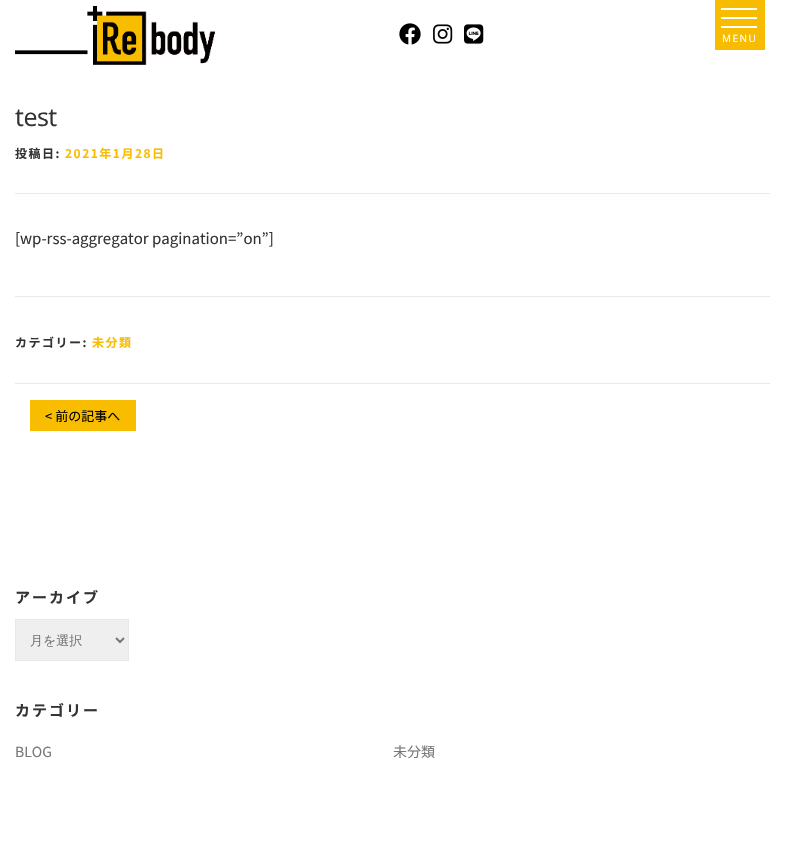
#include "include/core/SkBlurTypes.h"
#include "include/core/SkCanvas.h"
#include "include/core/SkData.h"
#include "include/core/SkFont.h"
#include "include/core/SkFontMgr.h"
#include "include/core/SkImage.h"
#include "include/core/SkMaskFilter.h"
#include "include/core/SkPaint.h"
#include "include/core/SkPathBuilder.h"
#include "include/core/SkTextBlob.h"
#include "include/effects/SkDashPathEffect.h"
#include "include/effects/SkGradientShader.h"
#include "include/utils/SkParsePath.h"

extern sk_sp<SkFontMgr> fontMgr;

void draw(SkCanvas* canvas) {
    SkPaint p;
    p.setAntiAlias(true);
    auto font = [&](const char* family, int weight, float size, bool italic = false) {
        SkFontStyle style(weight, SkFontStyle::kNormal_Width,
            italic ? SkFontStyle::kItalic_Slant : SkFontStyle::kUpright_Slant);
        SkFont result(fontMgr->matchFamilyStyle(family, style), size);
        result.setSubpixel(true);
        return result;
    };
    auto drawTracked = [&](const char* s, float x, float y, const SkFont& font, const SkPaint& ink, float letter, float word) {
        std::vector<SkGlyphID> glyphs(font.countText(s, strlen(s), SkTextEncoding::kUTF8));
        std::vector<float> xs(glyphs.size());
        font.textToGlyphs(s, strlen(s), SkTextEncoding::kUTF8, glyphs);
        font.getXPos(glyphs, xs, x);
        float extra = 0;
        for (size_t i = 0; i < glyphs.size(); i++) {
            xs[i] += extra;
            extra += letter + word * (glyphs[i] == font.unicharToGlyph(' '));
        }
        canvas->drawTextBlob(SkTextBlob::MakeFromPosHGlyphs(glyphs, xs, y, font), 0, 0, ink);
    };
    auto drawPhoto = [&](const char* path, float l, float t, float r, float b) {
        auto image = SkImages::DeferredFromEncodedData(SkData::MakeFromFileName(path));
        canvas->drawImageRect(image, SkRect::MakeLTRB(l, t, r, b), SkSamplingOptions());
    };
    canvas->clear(0xFFFFFFFF);
    drawPhoto("media/1.png", 15, 6, 215, 65);
    drawPhoto("media/2.png", 399, 23, 421, 45);
    drawPhoto("media/3.png", 433, 24, 453, 44);
    drawPhoto("media/4.png", 464, 24, 484, 44);
    {
        const struct { float l, t, r, b; SkColor color; } items[] = {
            {715, 0, 765, 50, 0xFFF7BB00},
            {721, 8, 757, 10, 0xFFFFFFFF},
            {721, 17, 757, 19, 0xFFFFFFFF},
            {721, 26, 757, 28, 0xFFFFFFFF},
        };
        for (auto [l, t, r, b, color] : items) {
            p.setColor(color);
            canvas->drawRect(SkRect::MakeLTRB(l, t, r, b), p);
        }
    }
    auto font1 = font("Open Sans", 400, 10);
    drawTracked("MENU", 722, 42, font1, p, 1.5f, 0);
    auto font2 = font("Open Sans", 400, 25);
    p.setColor(0xFF333333);
    drawTracked("test", 15, 126, font2, p, -0.5f, 0);
    p.setColor(0xFFE9E9E9);
    canvas->drawRect(SkRect::MakeLTRB(15, 193, 770, 194), p);
    auto font3 = font("Noto Sans JP", 700, 12);
    p.setColor(0xFF333333);
    drawTracked("投稿日:", 15, 158, font3, p, 1.5f, 0);
    p.setColor(0xFFF9BD00);
    drawTracked("2021年1月28日", 65, 158, font3, p, 1.5f, 0);
    auto font4 = font("Noto Sans JP", 400, 15);
    p.setColor(0xFF333333);
    canvas->drawString("[wp-rss-aggregator pagination=”on”]", 15, 244, font4, p);
    p.setColor(0xFFE9E9E9);
    canvas->drawRect(SkRect::MakeLTRB(15, 296, 770, 297), p);
    p.setColor(0xFF333333);
    drawTracked("カテゴリー:", 15, 347, font3, p, 1.5f, 0);
    p.setColor(0xFFF9BD00);
    drawTracked("未分類", 92, 347, font3, p, 1.5f, 0);
    p.setColor(0xFFE9E9E9);
    canvas->drawRect(SkRect::MakeLTRB(15, 383, 770, 384), p);
    p.setColor(0xFFF9BD00);
    canvas->drawRect(SkRect::MakeLTRB(30, 400, 136, 431), p);
    auto font5 = font("Noto Sans JP", 400, 13);
    p.setColor(0xFF000000);
    canvas->drawString("< 前の記事へ", 45, 421, font5, p);
    auto font6 = font("Noto Sans JP", 700, 15);
    p.setColor(0xFF333333);
    drawTracked("アーカイブ", 15, 603, font6, p, 2, 0);
    p.setColor(0xFFEFEFEF);
    canvas->drawRect(SkRect::MakeLTRB(15.5f, 619.5f, 128.5f, 660.5f), p);
    p.setStyle(SkPaint::kStroke_Style);
    p.setStrokeWidth(1);
    p.setColor(0xFFE9E9E9);
    canvas->drawRect(SkRect::MakeLTRB(15.5f, 619.5f, 128.5f, 660.5f), p);
    p.setStrokeWidth(2);
    p.setColor(0xFF777777);
    canvas->drawPath(SkPathBuilder().moveTo(116, 638).lineTo(120, 642).lineTo(124, 638).detach(), p);
    auto font7 = font("WenQuanYi Zen Hei", 500, 13);
    p.setStyle(SkPaint::kFill_Style);
    canvas->drawString("月を選択", 30, 645, font7, p);
    p.setColor(0xFF333333);
    drawTracked("カテゴリー", 15, 716, font6, p, 2, 0);
    auto font8 = font("Noto Sans JP", 400, 14);
    p.setColor(0xFF777777);
    canvas->drawString("BLOG", 15, 757, font8, p);
    canvas->drawString("未分類", 393, 757, font8, p);
}
